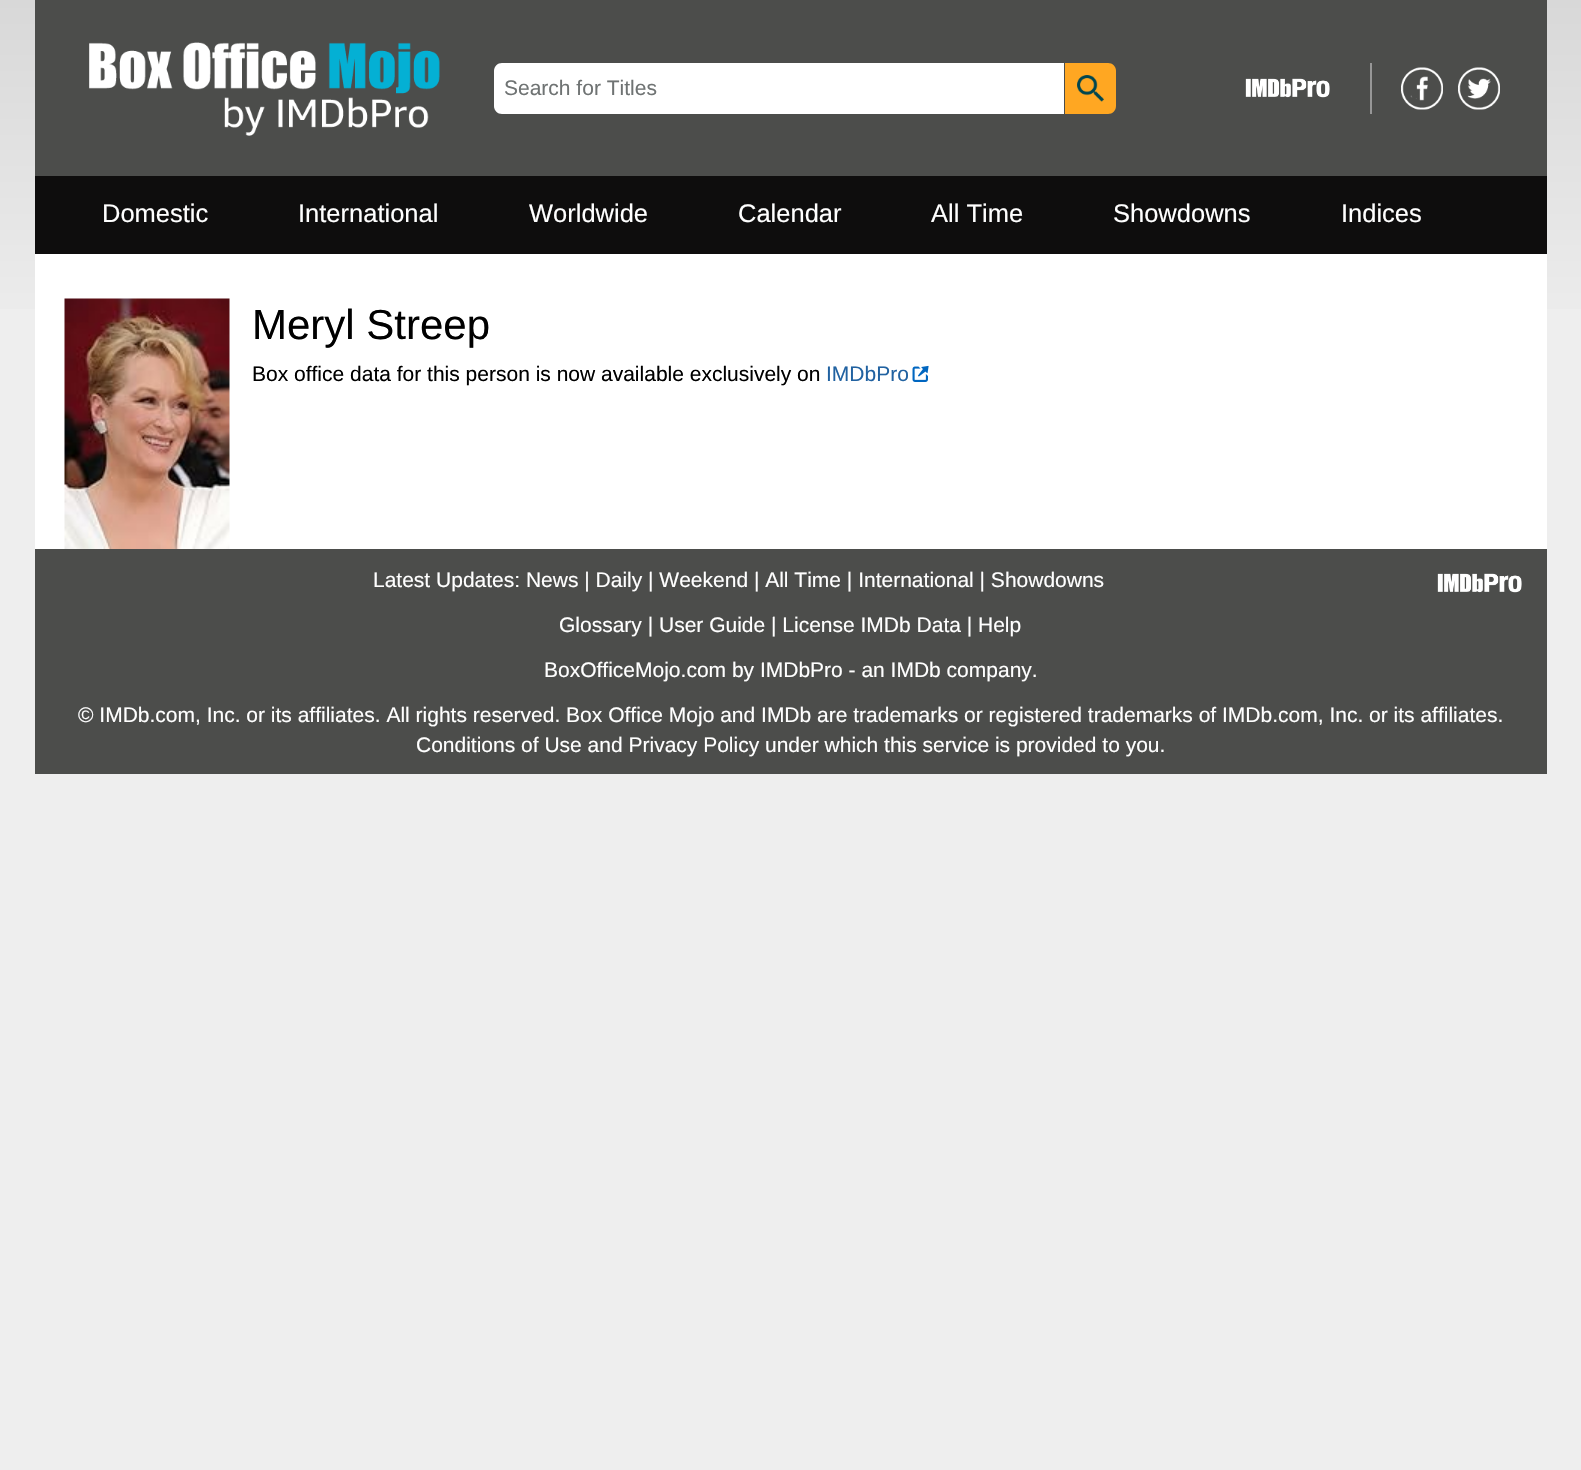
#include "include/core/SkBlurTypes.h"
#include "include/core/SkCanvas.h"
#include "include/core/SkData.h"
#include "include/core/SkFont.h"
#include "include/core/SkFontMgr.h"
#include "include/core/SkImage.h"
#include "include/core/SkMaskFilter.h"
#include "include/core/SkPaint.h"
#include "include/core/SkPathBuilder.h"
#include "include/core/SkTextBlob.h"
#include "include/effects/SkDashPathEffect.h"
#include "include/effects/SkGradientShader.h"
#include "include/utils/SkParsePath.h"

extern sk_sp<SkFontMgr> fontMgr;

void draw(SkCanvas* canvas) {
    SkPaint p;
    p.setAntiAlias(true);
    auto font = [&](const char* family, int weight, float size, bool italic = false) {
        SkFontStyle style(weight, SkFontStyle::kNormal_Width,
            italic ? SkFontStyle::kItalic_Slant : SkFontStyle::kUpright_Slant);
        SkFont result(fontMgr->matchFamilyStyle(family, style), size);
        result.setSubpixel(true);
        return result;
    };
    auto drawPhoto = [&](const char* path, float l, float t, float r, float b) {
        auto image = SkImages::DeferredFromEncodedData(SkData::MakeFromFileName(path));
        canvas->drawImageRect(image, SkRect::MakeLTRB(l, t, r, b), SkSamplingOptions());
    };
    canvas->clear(0xFFEEEEEE);
    {
        const SkColor colors[] = {0xFFEEEEEE, 0xFFD8D8D8};
        const float stops[] = {0.55f, 1};
        const SkPoint ends[] = {{791, 774}, {791, 0}};
        p.setShader(SkGradientShader::MakeLinear(ends, colors, stops, 2, SkTileMode::kClamp));
        p.setAlpha(255);
    }
    canvas->drawRect(SkRect::MakeLTRB(0, 0, 1581, 309), p);
    p.setShader(nullptr);
    p.setColor(0xFF4C4D4B);
    canvas->drawRect(SkRect::MakeLTRB(35, 0, 1547, 176), p);
    drawPhoto("media/1.png", 89, 42, 440, 136);
    p.setColor(0xFFFFFFFF);
    canvas->drawPath(SkPathBuilder().moveTo(502, 63).lineTo(1064, 63).lineTo(1064, 114).lineTo(502, 114).cubicTo(497.5f, 114, 494, 110.5f, 494, 106).lineTo(494, 71).cubicTo(494, 66.5f, 497.5f, 63, 502, 63).close().detach(), p);
    auto font1 = font("Liberation Sans", 400, 21);
    p.setColor(0xFF6F7373);
    canvas->drawString("Search for Titles", 504, 95, font1, p);
    p.setColor(0xFFFFA722);
    canvas->drawPath(SkPathBuilder().moveTo(1065, 63).lineTo(1108, 63).cubicTo(1112.5f, 63, 1116, 66.5f, 1116, 71).lineTo(1116, 106).cubicTo(1116, 110.5f, 1112.5f, 114, 1108, 114).lineTo(1065, 114).close().detach(), p);
    drawPhoto("media/2.png", 1077, 75, 1104, 102);
    drawPhoto("media/3.png", 1245, 78, 1330, 98);
    p.setColor(0xFF979797);
    canvas->drawRect(SkRect::MakeLTRB(1370, 63, 1372, 114), p);
    drawPhoto("media/4.png", 1401, 67, 1443, 110);
    drawPhoto("media/5.png", 1458, 67, 1500, 110);
    p.setColor(0xFF0E0D0D);
    canvas->drawRect(SkRect::MakeLTRB(35, 176, 1547, 254), p);
    auto font2 = font("Liberation Sans", 400, 25.5f);
    p.setColor(0xFFFFFFFF);
    {
        const struct { const char* s; float x, y; } items[] = {
            {"Domestic", 102, 222},
            {"International", 298, 222},
            {"Worldwide", 529, 222},
            {"Calendar", 738, 222},
            {"All Time", 931, 222},
            {"Showdowns", 1113, 222},
            {"Indices", 1341, 222},
        };
        for (auto [s, x, y] : items) {
            canvas->drawString(s, x, y, font2, p);
        }
    }
    canvas->drawRect(SkRect::MakeLTRB(35, 254, 1547, 549), p);
    drawPhoto("media/6.png", 64, 298, 230, 549);
    auto font3 = font("Liberation Sans", 400, 42);
    p.setColor(0xFF000000);
    canvas->drawString("Meryl Streep", 252, 339, font3, p);
    canvas->drawString("Box office data for this person is now available exclusively on", 252, 381, font1, p);
    p.setColor(0xFF2162A1);
    canvas->drawString("IMDbPro", 826, 381, font1, p);
    drawPhoto("media/7.png", 912, 365, 929, 382);
    p.setColor(0xFF4C4D4B);
    canvas->drawRect(SkRect::MakeLTRB(35, 549, 1547, 774), p);
    p.setColor(0xFFFFFFFF);
    canvas->drawString("Latest Updates: News | Daily | Weekend | All Time | International | Showdowns", 373, 587, font1, p);
    drawPhoto("media/8.png", 1437, 573, 1522, 593);
    {
        const struct { const char* s; float x, y; } items[] = {
            {"Glossary | User Guide | License IMDb Data | Help", 559, 632},
            {"BoxOfficeMojo.com by IMDbPro - an IMDb company.", 544, 677},
            {"© IMDb.com, Inc. or its affiliates. All rights reserved. Box Office Mojo and IMDb are trademarks or registered trademarks of IMDb.com, Inc. or its affiliates.", 78, 722},
            {"Conditions of Use and Privacy Policy under which this service is provided to you.", 416, 752},
        };
        for (auto [s, x, y] : items) {
            canvas->drawString(s, x, y, font1, p);
        }
    }
}
